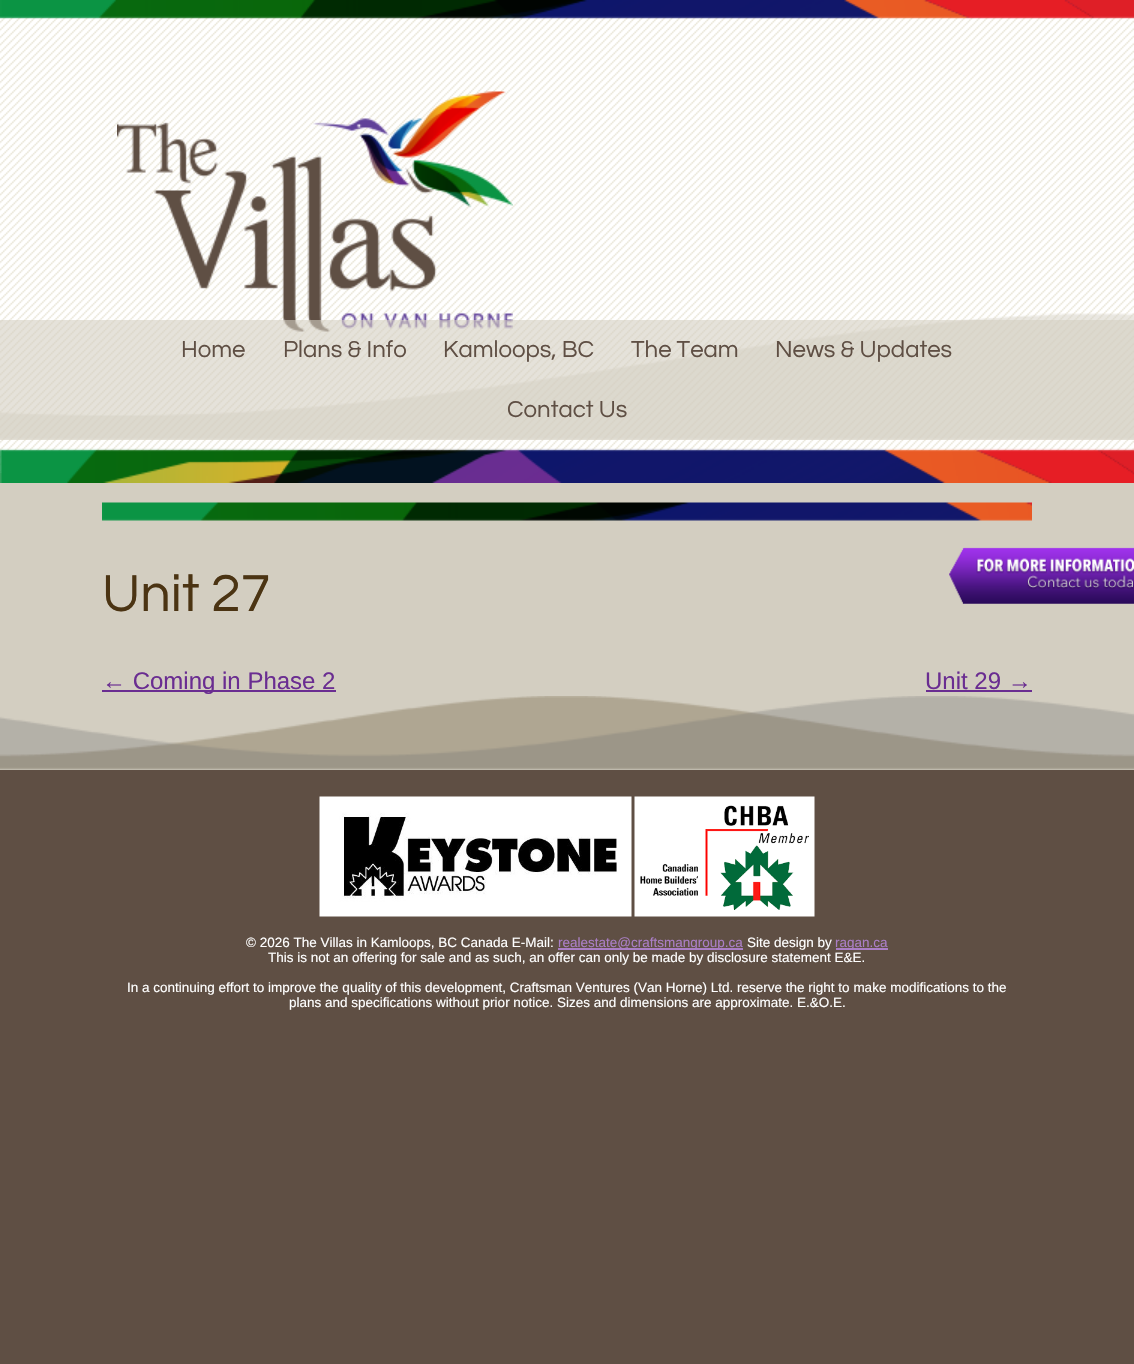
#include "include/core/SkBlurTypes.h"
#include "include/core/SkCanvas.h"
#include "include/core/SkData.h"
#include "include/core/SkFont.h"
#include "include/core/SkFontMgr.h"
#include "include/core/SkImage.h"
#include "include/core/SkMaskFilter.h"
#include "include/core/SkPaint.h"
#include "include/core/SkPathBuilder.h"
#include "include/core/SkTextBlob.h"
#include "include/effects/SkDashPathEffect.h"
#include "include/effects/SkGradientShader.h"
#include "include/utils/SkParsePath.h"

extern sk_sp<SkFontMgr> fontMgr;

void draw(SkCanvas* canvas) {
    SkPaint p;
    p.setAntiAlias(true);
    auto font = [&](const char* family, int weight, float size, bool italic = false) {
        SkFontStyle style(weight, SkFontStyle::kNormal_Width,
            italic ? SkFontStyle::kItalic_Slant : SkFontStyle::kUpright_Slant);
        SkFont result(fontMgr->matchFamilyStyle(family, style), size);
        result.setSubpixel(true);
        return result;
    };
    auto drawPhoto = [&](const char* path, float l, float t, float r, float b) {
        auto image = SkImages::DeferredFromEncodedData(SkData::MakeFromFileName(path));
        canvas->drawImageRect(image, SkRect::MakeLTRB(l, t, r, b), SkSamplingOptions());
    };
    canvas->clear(0xFF5F4F44);
    p.setColor(0xFFD3CEC1);
    canvas->drawRect(SkRect::MakeLTRB(0, 473, 1134, 770), p);
    p.setColor(0xFFFFFFFF);
    canvas->drawRect(SkRect::MakeLTRB(0, 0, 1134, 473), p);
    drawPhoto("media/1.png", 0, 0, 1134, 473);
    drawPhoto("media/2.png", 0, 0, 1134, 19);
    drawPhoto("media/3.png", 117, 91, 513, 332);
    drawPhoto("media/4.png", 0, 313, 1134, 440);
    p.setColor(0x99D3CEC1);
    canvas->drawRect(SkRect::MakeLTRB(0, 320, 1134, 440), p);
    auto font1 = font("Questrial", 400, 24);
    p.setColor(0xFF5F4F44);
    {
        const struct { const char* s; float x, y; } items[] = {
            {"Home", 181, 357},
            {"Plans & Info", 283, 357},
            {"Kamloops, BC", 443, 357},
            {"The Team", 631, 357},
            {"News & Updates", 775, 357},
            {"Contact Us", 507, 417},
        };
        for (auto [s, x, y] : items) {
            canvas->drawString(s, x, y, font1, p);
        }
    }
    drawPhoto("media/5.png", 0, 448, 1134, 483);
    drawPhoto("media/6.png", 0, 696, 1134, 770);
    drawPhoto("media/7.png", 102, 502, 1032, 521);
    auto font2 = font("Questrial", 400, 54);
    p.setColor(0xFF4B3413);
    canvas->drawString("Unit 27", 102, 611, font2, p);
    p.setColor(0xFF6A2D91);
    canvas->drawRect(SkRect::MakeLTRB(102, 690, 336, 692), p);
    auto font3 = font("Liberation Sans", 400, 24);
    canvas->drawString("← Coming in Phase 2", 102, 689, font3, p);
    canvas->drawString("Unit 29 →", 925, 689, font3, p);
    canvas->drawRect(SkRect::MakeLTRB(926, 690, 1032, 692), p);
    drawPhoto("media/8.png", 319, 796, 632, 917);
    drawPhoto("media/9.png", 634, 796, 815, 917);
    auto font4 = font("Liberation Sans", 400, 13.5f);
    p.setColor(0xFFFFFFFF);
    canvas->drawString("© 2026 The Villas in Kamloops, BC Canada E-Mail:", 246, 947, font4, p);
    p.setColor(0xFFAA7EC5);
    canvas->drawRect(SkRect::MakeLTRB(558, 948, 743, 950), p);
    canvas->drawString("realestate@craftsmangroup.ca", 558, 947, font4, p);
    p.setColor(0xFFFFFFFF);
    canvas->drawString("Site design by", 747, 947, font4, p);
    p.setColor(0xFFAA7EC5);
    canvas->drawRect(SkRect::MakeLTRB(836, 948, 888, 950), p);
    canvas->drawString("ragan.ca", 835, 947, font4, p);
    p.setColor(0xFFFFFFFF);
    {
        const struct { const char* s; float x, y; } items[] = {
            {"This is not an offering for sale and as such, an offer can only be made by disclosure statement E&E.", 268, 962},
            {"In a continuing effort to improve the quality of this development, Craftsman Ventures (Van Horne) Ltd. reserve the right to make modifications to the", 127, 992},
            {"plans and specifications without prior notice. Sizes and dimensions are approximate. E.&O.E.", 289, 1007},
        };
        for (auto [s, x, y] : items) {
            canvas->drawString(s, x, y, font4, p);
        }
    }
    drawPhoto("media/10.png", 949, 547, 1134, 604);
}
